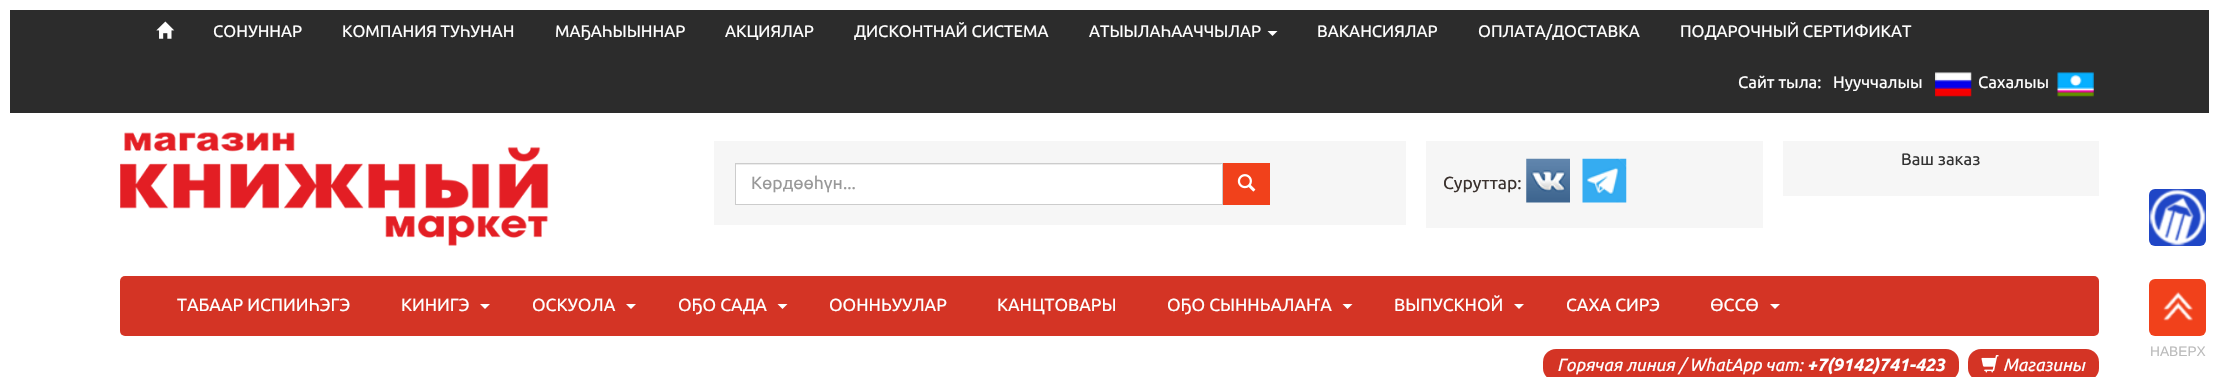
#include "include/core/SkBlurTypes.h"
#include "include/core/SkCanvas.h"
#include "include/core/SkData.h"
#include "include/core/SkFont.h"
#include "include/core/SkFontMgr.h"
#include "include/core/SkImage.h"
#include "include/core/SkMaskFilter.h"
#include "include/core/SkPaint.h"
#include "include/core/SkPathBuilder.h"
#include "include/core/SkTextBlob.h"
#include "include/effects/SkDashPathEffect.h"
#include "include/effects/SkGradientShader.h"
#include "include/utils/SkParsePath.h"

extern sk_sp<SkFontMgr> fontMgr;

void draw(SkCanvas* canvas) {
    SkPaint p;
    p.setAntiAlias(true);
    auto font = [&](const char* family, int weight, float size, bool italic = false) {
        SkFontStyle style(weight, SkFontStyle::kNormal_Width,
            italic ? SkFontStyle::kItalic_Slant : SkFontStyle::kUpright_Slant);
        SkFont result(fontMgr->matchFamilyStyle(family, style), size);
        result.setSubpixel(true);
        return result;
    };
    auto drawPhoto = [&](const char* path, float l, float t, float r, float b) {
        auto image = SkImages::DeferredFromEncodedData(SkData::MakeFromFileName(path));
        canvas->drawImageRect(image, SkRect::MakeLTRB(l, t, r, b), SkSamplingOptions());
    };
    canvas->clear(0xFFFFFFFF);
    p.setColor(0xFF2C2C2C);
    canvas->drawRect(SkRect::MakeLTRB(10, 10, 2209, 113), p);
    drawPhoto("media/1.png", 156, 21, 175, 39);
    auto font1 = font("Ubuntu", 400, 16.6f);
    p.setColor(0xFFFFFFFF);
    {
        const struct { const char* s; float x, y; } items[] = {
            {"СОНУННАР", 213, 37},
            {"КОМПАНИЯ ТУҺУНАН", 342, 37},
            {"МАҔАҺЫЫННАР", 555, 37},
            {"АКЦИЯЛАР", 725, 37},
            {"ДИСКОНТНАЙ СИСТЕМА", 854, 37},
            {"АТЫЫЛАҺААЧЧЫЛАР", 1089, 37},
        };
        for (auto [s, x, y] : items) {
            canvas->drawString(s, x, y, font1, p);
        }
    }
    canvas->drawPath(SkPathBuilder().moveTo(1267.5f, 31).lineTo(1277.5f, 31).lineTo(1272.5f, 36).close().detach(), p);
    {
        const struct { const char* s; float x, y; } items[] = {
            {"ВАКАНСИЯЛАР", 1317, 37},
            {"ОПЛАТА/ДОСТАВКА", 1478, 37},
            {"ПОДАРОЧНЫЙ СЕРТИФИКАТ", 1680, 37},
            {"Сайт тыла:", 1738, 88},
            {"Нууччалыы", 1833, 88},
        };
        for (auto [s, x, y] : items) {
            canvas->drawString(s, x, y, font1, p);
        }
    }
    drawPhoto("media/2.png", 1935, 72, 1972, 97);
    canvas->drawString("Сахалыы", 1978, 88, font1, p);
    drawPhoto("media/3.png", 2057, 72, 2094, 97);
    drawPhoto("media/4.png", 120, 132, 549, 246);
    p.setColor(0xFFF6F6F6);
    canvas->drawRect(SkRect::MakeLTRB(1783, 141, 2099, 196), p);
    p.setColor(0xFF333333);
    canvas->drawString("Ваш заказ", 1901, 165, font1, p);
    {
        const struct { float l, t, r, b; SkColor color; } items[] = {
            {714, 141, 1406, 225, 0xFFF6F6F6},
            {736, 164, 1222, 204, 0xFFFFFFFF},
            {736, 164, 1221, 165, 0xFFECECEC},
        };
        for (auto [l, t, r, b, color] : items) {
            p.setColor(color);
            canvas->drawRect(SkRect::MakeLTRB(l, t, r, b), p);
        }
    }
    p.setStyle(SkPaint::kStroke_Style);
    p.setStrokeWidth(1);
    p.setColor(0xFFCCCCCC);
    canvas->drawRect(SkRect::MakeLTRB(735.5f, 163.5f, 1222.5f, 204.5f), p);
    auto font2 = font("Ubuntu", 400, 17.5f);
    p.setStyle(SkPaint::kFill_Style);
    p.setColor(0xFF999999);
    canvas->drawString("Көрдөөһүн...", 751, 189, font2, p);
    p.setColor(0xFFF1411B);
    canvas->drawRect(SkRect::MakeLTRB(1223, 163, 1270, 205), p);
    drawPhoto("media/5.png", 1237, 174, 1256, 192);
    p.setColor(0xFFF6F6F6);
    canvas->drawRect(SkRect::MakeLTRB(1426, 141, 1763, 228), p);
    p.setColor(0xFF3A312D);
    canvas->drawString("Суруттар:", 1443, 189, font2, p);
    drawPhoto("media/6.png", 1526, 158, 1570, 203);
    drawPhoto("media/7.png", 1582, 158, 1627, 203);
    p.setColor(0xFFD43425);
    canvas->drawRoundRect(SkRect::MakeLTRB(120, 276, 2099, 336), 5, 5, p);
    p.setColor(0xFFFFFFFF);
    canvas->drawString("ТАБААР ИСПИИҺЭГЭ", 177, 311, font2, p);
    canvas->drawString("КИНИГЭ", 401, 311, font2, p);
    canvas->drawPath(SkPathBuilder().moveTo(480, 304).lineTo(490, 304).lineTo(485, 309).close().detach(), p);
    canvas->drawString("ОСКУОЛА", 532, 311, font2, p);
    canvas->drawPath(SkPathBuilder().moveTo(626, 304).lineTo(636, 304).lineTo(631, 309).close().detach(), p);
    canvas->drawString("ОҔО САДА", 678, 311, font2, p);
    canvas->drawPath(SkPathBuilder().moveTo(777.5f, 304).lineTo(787.5f, 304).lineTo(782.5f, 309).close().detach(), p);
    {
        const struct { const char* s; float x, y; } items[] = {
            {"ООННЬУУЛАР", 829, 311},
            {"КАНЦТОВАРЫ", 997, 311},
            {"ОҔО СЫННЬАЛАҤА", 1167, 311},
        };
        for (auto [s, x, y] : items) {
            canvas->drawString(s, x, y, font2, p);
        }
    }
    canvas->drawPath(SkPathBuilder().moveTo(1342.5f, 304).lineTo(1352.5f, 304).lineTo(1347.5f, 309).close().detach(), p);
    canvas->drawString("ВЫПУСКНОЙ", 1394, 311, font2, p);
    canvas->drawPath(SkPathBuilder().moveTo(1514, 304).lineTo(1524, 304).lineTo(1519, 309).close().detach(), p);
    canvas->drawString("САХА СИРЭ", 1566, 311, font2, p);
    canvas->drawString("ӨССӨ", 1710, 311, font2, p);
    canvas->drawPath(SkPathBuilder().moveTo(1770, 304).lineTo(1780, 304).lineTo(1775, 309).close().detach(), p);
    p.setColor(0xFF1F46C6);
    canvas->drawRoundRect(SkRect::MakeLTRB(2149, 189, 2206, 246), 6, 6, p);
    drawPhoto("media/8.png", 2149, 189, 2206, 246);
    p.setColor(0xFFF1411B);
    canvas->drawRoundRect(SkRect::MakeLTRB(2149, 279, 2206, 336), 6, 6, p);
    drawPhoto("media/9.png", 2163, 291, 2193, 321);
    auto font3 = font("Liberation Sans", 400, 13.75f);
    p.setColor(0xFFBBBBBB);
    canvas->drawString("НАВЕРХ", 2150, 356, font3, p);
    p.setColor(0xFFD43425);
    canvas->drawRoundRect(SkRect::MakeLTRB(1543, 349, 1959, 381), 13, 13, p);
    auto font4 = font("Ubuntu", 400, 17.5f, true);
    p.setColor(0xFFFFFFFF);
    canvas->drawString("Горячая линия / WhatApp чат:", 1557, 371, font4, p);
    auto font5 = font("Ubuntu", 700, 17.5f, true);
    canvas->drawString("+7(9142)741-423", 1807, 371, font5, p);
    p.setColor(0xFFD43425);
    canvas->drawRoundRect(SkRect::MakeLTRB(1968, 349, 2099, 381), 13, 13, p);
    drawPhoto("media/10.png", 1981, 355, 1999, 373);
    p.setColor(0xFFFFFFFF);
    canvas->drawString("Магазины", 2003, 371, font4, p);
}
